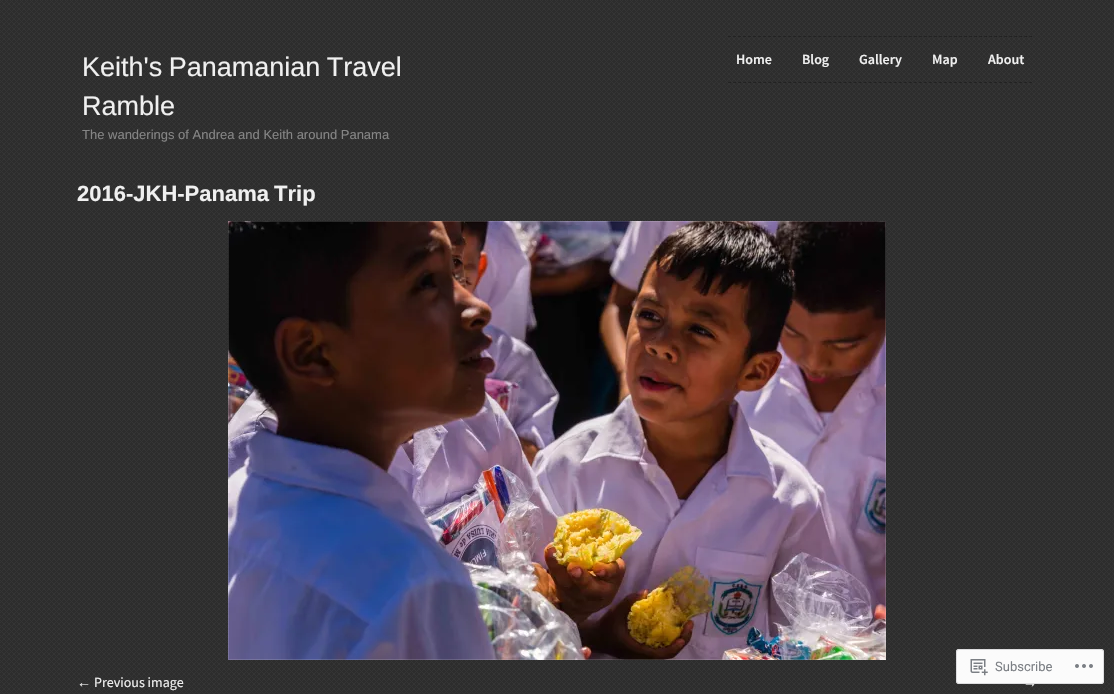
#include "include/core/SkBlurTypes.h"
#include "include/core/SkCanvas.h"
#include "include/core/SkData.h"
#include "include/core/SkFont.h"
#include "include/core/SkFontMgr.h"
#include "include/core/SkImage.h"
#include "include/core/SkMaskFilter.h"
#include "include/core/SkPaint.h"
#include "include/core/SkPathBuilder.h"
#include "include/core/SkTextBlob.h"
#include "include/effects/SkDashPathEffect.h"
#include "include/effects/SkGradientShader.h"
#include "include/utils/SkParsePath.h"

extern sk_sp<SkFontMgr> fontMgr;

void draw(SkCanvas* canvas) {
    SkPaint p;
    p.setAntiAlias(true);
    auto font = [&](const char* family, int weight, float size, bool italic = false) {
        SkFontStyle style(weight, SkFontStyle::kNormal_Width,
            italic ? SkFontStyle::kItalic_Slant : SkFontStyle::kUpright_Slant);
        SkFont result(fontMgr->matchFamilyStyle(family, style), size);
        result.setSubpixel(true);
        return result;
    };
    auto drawTracked = [&](const char* s, float x, float y, const SkFont& font, const SkPaint& ink, float letter, float word) {
        std::vector<SkGlyphID> glyphs(font.countText(s, strlen(s), SkTextEncoding::kUTF8));
        std::vector<float> xs(glyphs.size());
        font.textToGlyphs(s, strlen(s), SkTextEncoding::kUTF8, glyphs);
        font.getXPos(glyphs, xs, x);
        float extra = 0;
        for (size_t i = 0; i < glyphs.size(); i++) {
            xs[i] += extra;
            extra += letter + word * (glyphs[i] == font.unicharToGlyph(' '));
        }
        canvas->drawTextBlob(SkTextBlob::MakeFromPosHGlyphs(glyphs, xs, y, font), 0, 0, ink);
    };
    auto drawPhoto = [&](const char* path, float l, float t, float r, float b) {
        auto image = SkImages::DeferredFromEncodedData(SkData::MakeFromFileName(path));
        canvas->drawImageRect(image, SkRect::MakeLTRB(l, t, r, b), SkSamplingOptions());
    };
    canvas->clear(0xFF2D2D2D);
    drawPhoto("media/1.png", 0, 0, 1114, 694);
    auto font1 = font("Liberation Sans", 400, 27);
    p.setColor(0xFFF0F0F0);
    drawTracked("Keith's Panamanian Travel", 82, 76, font1, p, 0, -1);
    canvas->drawString("Ramble", 82, 115, font1, p);
    auto font2 = font("Liberation Sans", 400, 13);
    p.setColor(0xFF858585);
    canvas->drawString("The wanderings of Andrea and Keith around Panama", 82, 139, font2, p);
    p.setStyle(SkPaint::kStroke_Style);
    p.setStrokeWidth(1);
    p.setColor(0xFF222222);
    p.setPathEffect(SkDashPathEffect::Make({{3, 2.02f}}, 0));
    canvas->drawPath(SkPathBuilder().moveTo(728, 36.5f).lineTo(1032, 36.5f).detach(), p);
    p.setPathEffect(nullptr);
    p.setPathEffect(SkDashPathEffect::Make({{3, 2.02f}}, 0));
    canvas->drawPath(SkPathBuilder().moveTo(728, 82.5f).lineTo(1032, 82.5f).detach(), p);
    p.setPathEffect(nullptr);
    auto font3 = font("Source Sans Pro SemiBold", 600, 14);
    p.setStyle(SkPaint::kFill_Style);
    p.setColor(0xFFF0F0F0);
    {
        const struct { const char* s; float x, y; } items[] = {
            {"Home", 736, 64},
            {"Blog", 802, 64},
            {"Gallery", 859, 64},
            {"Map", 932, 64},
            {"About", 988, 64},
        };
        for (auto [s, x, y] : items) {
            canvas->drawString(s, x, y, font3, p);
        }
    }
    auto font4 = font("Liberation Sans", 700, 22);
    drawTracked("2016-JKH-Panama Trip", 77, 201, font4, p, 0, -1);
    drawPhoto("media/2.png", 228, 221, 886, 660);
    p.setStyle(SkPaint::kStroke_Style);
    p.setColor(0x24FFFFFF);
    canvas->drawRect(SkRect::MakeLTRB(228.5f, 221.5f, 885.5f, 659.5f), p);
    auto font5 = font("Liberation Sans", 400, 14);
    p.setStyle(SkPaint::kFill_Style);
    p.setColor(0xFFF0F0F0);
    canvas->drawString("←", 77, 687, font5, p);
    auto font6 = font("Source Sans Pro", 400, 14);
    canvas->drawString("Previous image", 94, 687, font6, p);
    canvas->drawString("→", 1023, 687, font5, p);
    p.setColor(0xFAFFFFFF);
    canvas->drawRoundRect(SkRect::MakeLTRB(956, 649, 1104, 684), 3, 3, p);
    p.setStyle(SkPaint::kStroke_Style);
    p.setColor(0xFADCDCDE);
    canvas->drawRoundRect(SkRect::MakeLTRB(956.5f, 649.5f, 1103.5f, 683.5f), 2.5f, 2.5f, p);
    drawPhoto("media/3.png", 970, 659, 988, 676);
    auto font7 = font("Roboto", 400, 13);
    p.setStyle(SkPaint::kFill_Style);
    p.setColor(0xFF7B7F84);
    canvas->drawString("Subscribe", 995, 671, font7, p);
    drawPhoto("media/4.png", 1075, 664, 1093, 668);
}
